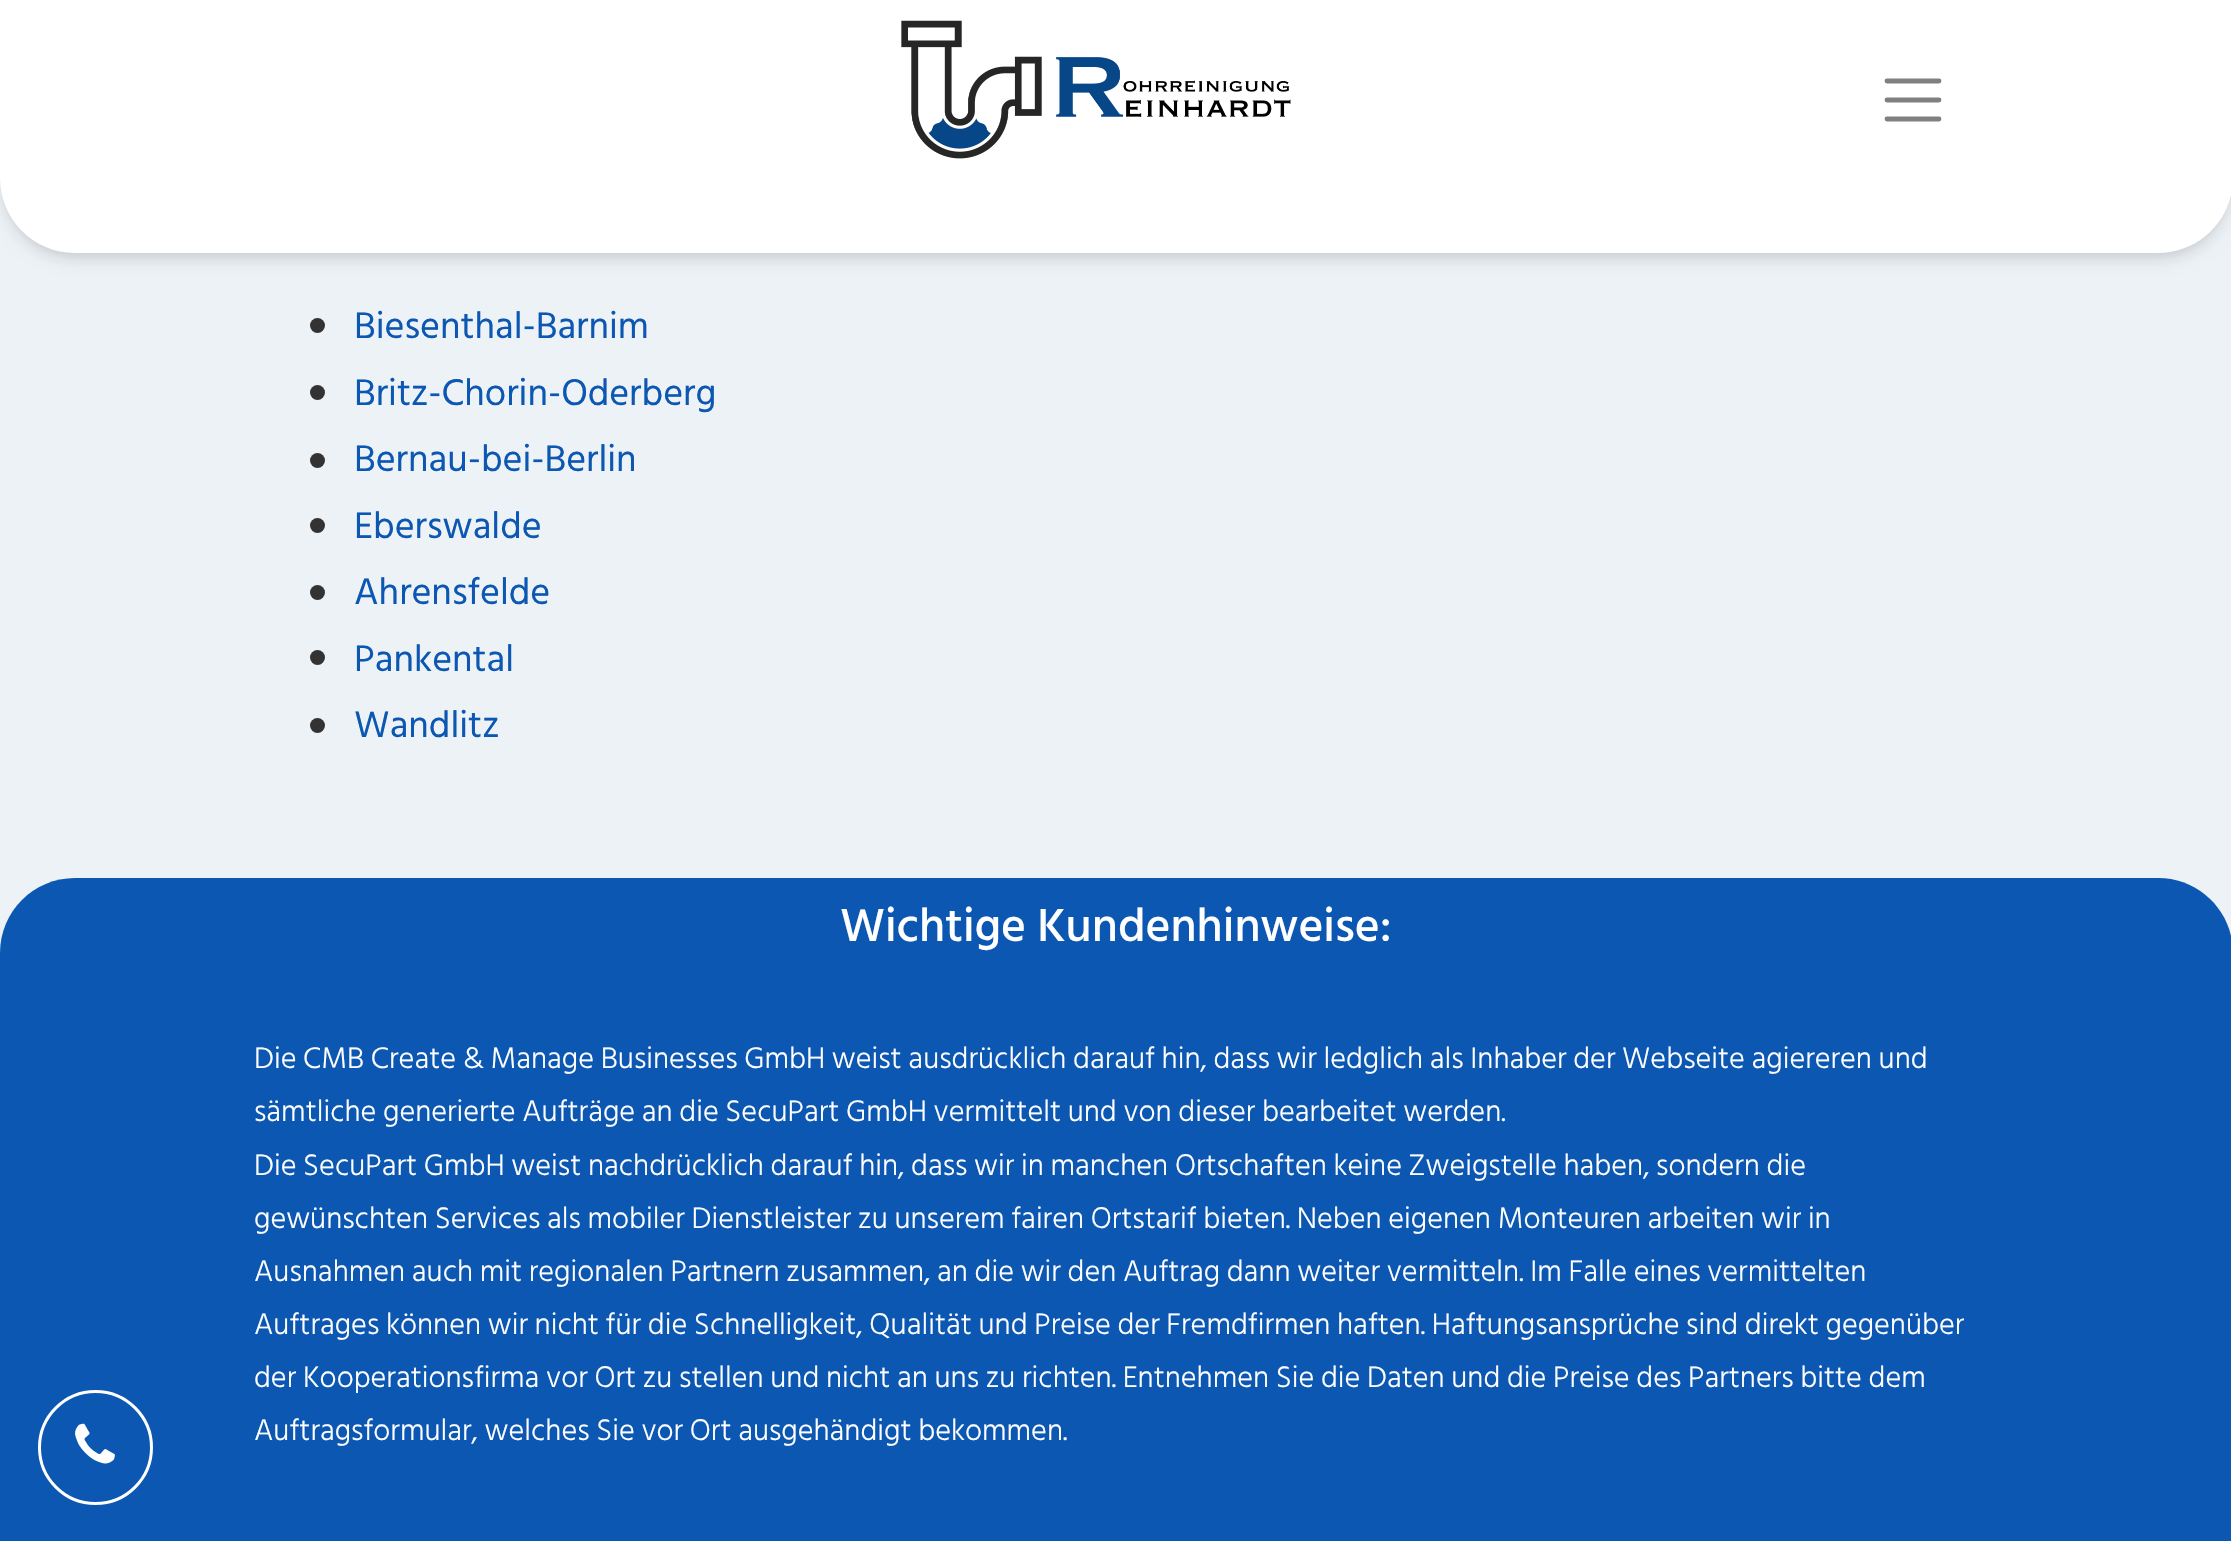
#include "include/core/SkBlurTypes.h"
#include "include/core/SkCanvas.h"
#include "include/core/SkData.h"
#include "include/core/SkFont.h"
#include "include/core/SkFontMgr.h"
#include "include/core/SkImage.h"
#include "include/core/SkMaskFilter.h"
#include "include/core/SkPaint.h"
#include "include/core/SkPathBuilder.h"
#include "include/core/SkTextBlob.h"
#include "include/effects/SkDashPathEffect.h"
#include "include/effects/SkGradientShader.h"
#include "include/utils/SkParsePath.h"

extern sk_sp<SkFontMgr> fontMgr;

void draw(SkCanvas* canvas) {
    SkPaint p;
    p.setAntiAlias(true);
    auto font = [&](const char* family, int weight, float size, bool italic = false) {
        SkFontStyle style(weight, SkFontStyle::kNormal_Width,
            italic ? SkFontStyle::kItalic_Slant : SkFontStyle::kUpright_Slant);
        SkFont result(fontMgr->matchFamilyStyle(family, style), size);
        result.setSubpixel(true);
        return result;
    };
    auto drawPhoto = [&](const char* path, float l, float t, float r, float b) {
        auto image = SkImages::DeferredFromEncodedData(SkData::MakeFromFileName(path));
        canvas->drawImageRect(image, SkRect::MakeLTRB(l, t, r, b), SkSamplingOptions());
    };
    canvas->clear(0xFFEDF2F7);
    p.setColor(0x0F000000);
    p.setMaskFilter(SkMaskFilter::MakeBlur(kNormal_SkBlurStyle, 5));
    canvas->drawRoundRect(SkRect::MakeLTRB(3, 8, 2230, 255), 73, 73, p);
    p.setMaskFilter(nullptr);
    p.setColor(0x1A000000);
    p.setMaskFilter(SkMaskFilter::MakeBlur(kNormal_SkBlurStyle, 7.5f));
    canvas->drawRoundRect(SkRect::MakeLTRB(3, 13, 2230, 260), 73, 73, p);
    p.setMaskFilter(nullptr);
    p.setColor(0xFFFFFFFF);
    canvas->drawPath(SkPathBuilder().moveTo(0, 0).lineTo(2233, 0).lineTo(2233, 178).cubicTo(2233, 219.5f, 2199.5f, 253, 2158, 253).lineTo(75, 253).cubicTo(33.5f, 253, 0, 219.5f, 0, 178).close().detach(), p);
    drawPhoto("media/1.png", 901, 20, 1291, 159);
    p.setStyle(SkPaint::kStroke_Style);
    p.setStrokeWidth(4.8f);
    p.setStrokeCap(SkPaint::kRound_Cap);
    p.setColor(0xFF808080);
    canvas->drawPath(SkPathBuilder().moveTo(1887, 81).lineTo(1939, 81).moveTo(1887, 100).lineTo(1939, 100).moveTo(1887, 119).lineTo(1939, 119).detach(), p);
    p.setStyle(SkPaint::kFill_Style);
    p.setColor(0xFF333333);
    canvas->drawCircle(317.5f, 325.5f, 7.5f, p);
    auto font1 = font("Hind Siliguri", 400, 38);
    p.setColor(0xFF0B57B2);
    canvas->drawString("Biesenthal-Barnim", 354, 338, font1, p);
    p.setColor(0xFF333333);
    canvas->drawCircle(317.5f, 392.5f, 7.5f, p);
    p.setColor(0xFF0B57B2);
    canvas->drawString("Britz-Chorin-Oderberg", 354, 405, font1, p);
    p.setColor(0xFF333333);
    canvas->drawCircle(317.5f, 460.5f, 7.5f, p);
    p.setColor(0xFF0B57B2);
    canvas->drawString("Bernau-bei-Berlin", 354, 471, font1, p);
    p.setColor(0xFF333333);
    canvas->drawCircle(317.5f, 525.5f, 7.5f, p);
    p.setColor(0xFF0B57B2);
    canvas->drawString("Eberswalde", 354, 538, font1, p);
    p.setColor(0xFF333333);
    canvas->drawCircle(317.5f, 592.5f, 7.5f, p);
    p.setColor(0xFF0B57B2);
    canvas->drawString("Ahrensfelde", 354, 604, font1, p);
    p.setColor(0xFF333333);
    canvas->drawCircle(317.5f, 657.5f, 7.5f, p);
    p.setColor(0xFF0B57B2);
    canvas->drawString("Pankental", 354, 671, font1, p);
    p.setColor(0xFF333333);
    canvas->drawCircle(317.5f, 725.5f, 7.5f, p);
    p.setColor(0xFF0B57B2);
    canvas->drawString("Wandlitz", 354, 737, font1, p);
    canvas->drawPath(SkPathBuilder().moveTo(75, 878).lineTo(2158, 878).cubicTo(2199.5f, 878, 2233, 911.5f, 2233, 953).lineTo(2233, 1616).lineTo(0, 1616).lineTo(0, 953).cubicTo(0, 911.5f, 33.5f, 878, 75, 878).close().detach(), p);
    p.setStyle(SkPaint::kStroke_Style);
    p.setStrokeWidth(3);
    p.setStrokeCap(SkPaint::kButt_Cap);
    p.setColor(0xFFFFFFFF);
    canvas->drawCircle(95.5f, 1447.5f, 56, p);
    drawPhoto("media/2.png", 75, 1423, 115, 1464);
    auto font2 = font("Hind Siliguri", 500, 47.5f);
    p.setStyle(SkPaint::kFill_Style);
    canvas->drawString("Wichtige Kundenhinweise:", 840, 941, font2, p);
    auto font3 = font("Hind Siliguri", 300, 30.4f);
    {
        const struct { const char* s; float x, y; } items[] = {
            {"Die CMB Create & Manage Businesses GmbH weist ausdrücklich darauf hin, dass wir ledglich als Inhaber der Webseite agiereren und", 254, 1068},
            {"sämtliche generierte Aufträge an die SecuPart GmbH vermittelt und von dieser bearbeitet werden.", 254, 1121},
            {"Die SecuPart GmbH weist nachdrücklich darauf hin, dass wir in manchen Ortschaften keine Zweigstelle haben, sondern die", 254, 1175},
            {"gewünschten Services als mobiler Dienstleister zu unserem fairen Ortstarif bieten. Neben eigenen Monteuren arbeiten wir in", 254, 1228},
            {"Ausnahmen auch mit regionalen Partnern zusammen, an die wir den Auftrag dann weiter vermitteln. Im Falle eines vermittelten", 254, 1281},
            {"Auftrages können wir nicht für die Schnelligkeit, Qualität und Preise der Fremdfirmen haften. Haftungsansprüche sind direkt gegenüber", 254, 1334},
            {"der Kooperationsfirma vor Ort zu stellen und nicht an uns zu richten. Entnehmen Sie die Daten und die Preise des Partners bitte dem", 254, 1387},
            {"Auftragsformular, welches Sie vor Ort ausgehändigt bekommen.", 254, 1440},
        };
        for (auto [s, x, y] : items) {
            canvas->drawString(s, x, y, font3, p);
        }
    }
}
